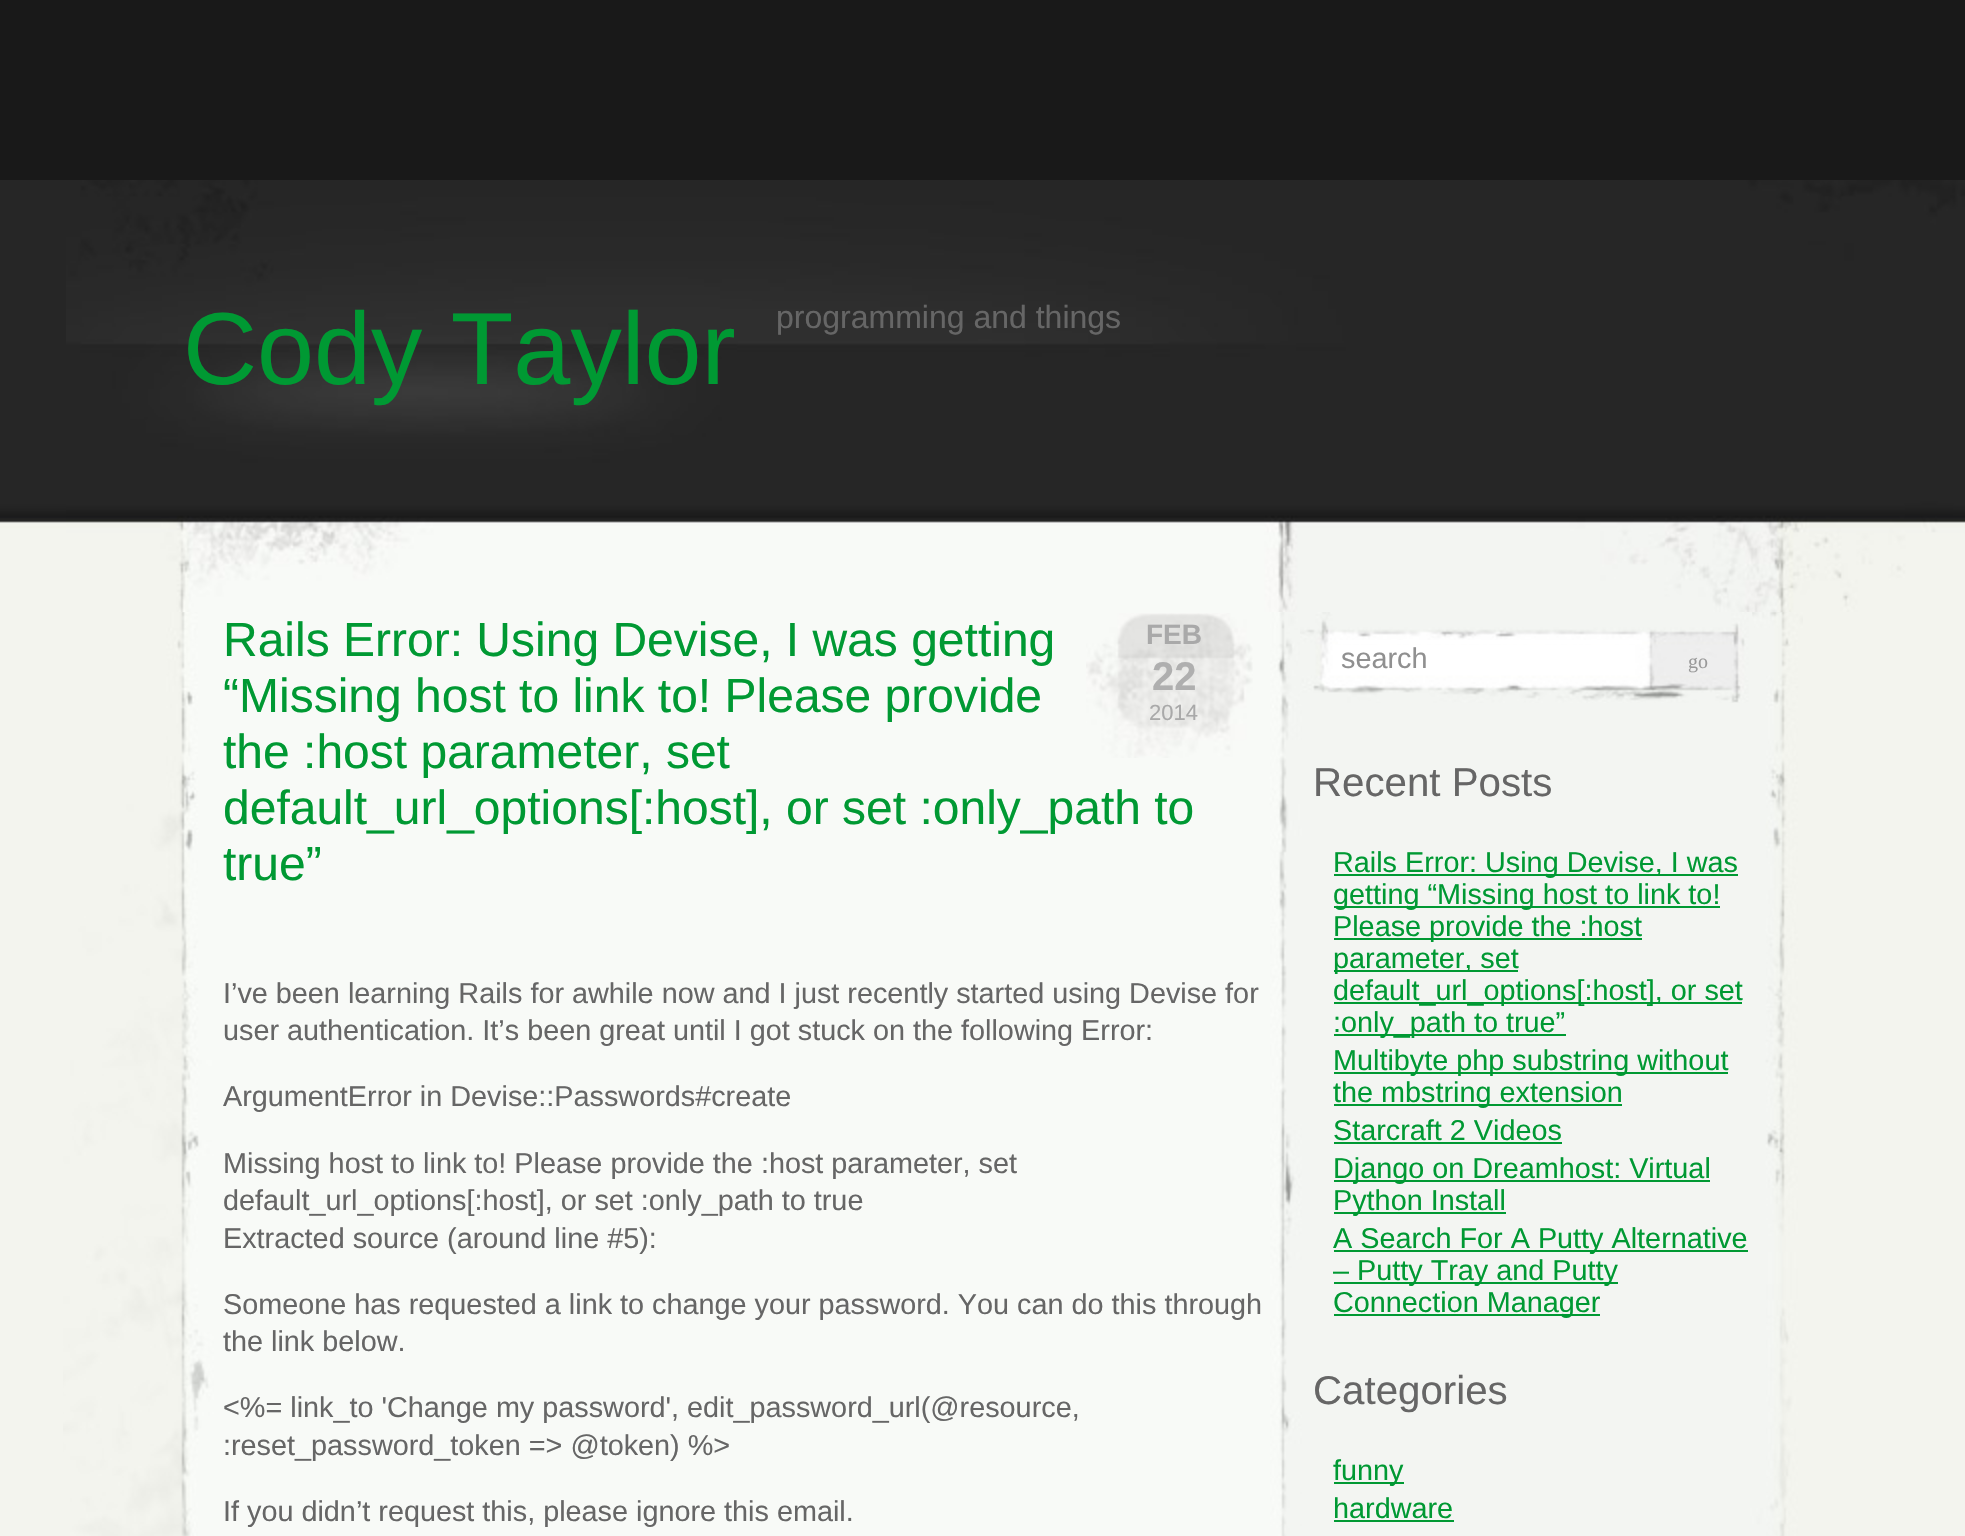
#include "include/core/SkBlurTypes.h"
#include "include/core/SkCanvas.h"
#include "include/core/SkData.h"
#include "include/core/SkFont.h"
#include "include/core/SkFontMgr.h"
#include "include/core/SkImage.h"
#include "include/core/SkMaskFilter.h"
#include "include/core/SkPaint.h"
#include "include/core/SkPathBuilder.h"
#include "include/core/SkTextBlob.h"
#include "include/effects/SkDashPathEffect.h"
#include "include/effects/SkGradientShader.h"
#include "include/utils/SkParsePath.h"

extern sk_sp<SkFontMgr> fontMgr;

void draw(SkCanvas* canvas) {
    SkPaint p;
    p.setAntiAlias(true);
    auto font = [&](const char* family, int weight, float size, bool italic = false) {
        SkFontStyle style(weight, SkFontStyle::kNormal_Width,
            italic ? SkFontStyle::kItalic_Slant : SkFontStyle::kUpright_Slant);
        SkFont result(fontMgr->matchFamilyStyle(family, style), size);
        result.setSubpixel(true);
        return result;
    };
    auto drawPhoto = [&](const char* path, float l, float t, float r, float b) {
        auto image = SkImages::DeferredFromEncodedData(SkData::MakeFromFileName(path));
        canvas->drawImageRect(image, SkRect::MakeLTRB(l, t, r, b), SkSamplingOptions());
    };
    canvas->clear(0xFF191919);
    drawPhoto("media/1.png", 0, 180, 66, 612);
    drawPhoto("media/2.png", 66, 180, 1965, 612);
    auto font1 = font("Liberation Sans", 400, 102.5f);
    p.setColor(0xFF009933);
    canvas->drawString("Cody Taylor", 183, 384, font1, p);
    auto font2 = font("Liberation Sans", 400, 32);
    p.setColor(0xFF666666);
    canvas->drawString("programming and things", 776, 328, font2, p);
    p.setColor(0xFFF3F4EE);
    canvas->drawRect(SkRect::MakeLTRB(0, 612, 1965, 1536), p);
    drawPhoto("media/3.png", 63, 612, 1803, 1536);
    auto font3 = font("Liberation Sans", 400, 48);
    p.setColor(0xFF009933);
    {
        const struct { const char* s; float x, y; } items[] = {
            {"Rails Error: Using Devise, I was getting", 223, 656},
            {"“Missing host to link to! Please provide", 223, 712},
            {"the :host parameter, set", 223, 768},
            {"default_url_options[:host], or set :only_path to", 223, 824},
            {"true”", 223, 880},
        };
        for (auto [s, x, y] : items) {
            canvas->drawString(s, x, y, font3, p);
        }
    }
    drawPhoto("media/4.png", 1086, 613, 1253, 758);
    auto font4 = font("Liberation Sans", 700, 28);
    p.setColor(0xFFA9A9A9);
    canvas->drawString("FEB", 1146, 644, font4, p);
    auto font5 = font("Liberation Sans", 700, 40);
    p.setColor(0xFFAFAFAF);
    canvas->drawString("22", 1152, 690, font5, p);
    auto font6 = font("Liberation Sans", 400, 22);
    p.setColor(0xFFA9A9A9);
    canvas->drawString("2014", 1149, 720, font6, p);
    auto font7 = font("Liberation Sans", 400, 28.8f);
    p.setColor(0xFF666666);
    {
        const struct { const char* s; float x, y; } items[] = {
            {"I’ve been learning Rails for awhile now and I just recently started using Devise for", 223, 1003},
            {"user authentication. It’s been great until I got stuck on the following Error:", 223, 1040},
            {"ArgumentError in Devise::Passwords#create", 223, 1106},
            {"Missing host to link to! Please provide the :host parameter, set", 223, 1173},
            {"default_url_options[:host], or set :only_path to true", 223, 1210},
            {"Extracted source (around line #5):", 223, 1248},
            {"Someone has requested a link to change your password. You can do this through", 223, 1314},
            {"the link below.", 223, 1351},
            {"<%= link_to 'Change my password', edit_password_url(@resource,", 223, 1417},
            {":reset_password_token => @token) %>", 223, 1455},
            {"If you didn’t request this, please ignore this email.", 223, 1521},
        };
        for (auto [s, x, y] : items) {
            canvas->drawString(s, x, y, font7, p);
        }
    }
    drawPhoto("media/5.png", 1300, 612, 1752, 703);
    p.setColor(0xFFFFFFFF);
    canvas->drawRect(SkRect::MakeLTRB(1338, 640, 1642, 644), p);
    p.setColor(0xFF909090);
    canvas->drawString("search", 1341, 668, font7, p);
    auto font8 = font("Liberation Serif", 400, 20);
    p.setColor(0xFF999999);
    canvas->drawString("go", 1688, 668, font8, p);
    auto font9 = font("Liberation Sans", 400, 40.25f);
    p.setColor(0xFF666666);
    canvas->drawString("Recent Posts", 1313, 796, font9, p);
    p.setColor(0xFF009933);
    canvas->drawRect(SkRect::MakeLTRB(1334, 874, 1738, 876), p);
    canvas->drawString("Rails Error: Using Devise, I was", 1333, 872, font7, p);
    canvas->drawRect(SkRect::MakeLTRB(1334, 906, 1720, 908), p);
    canvas->drawString("getting “Missing host to link to!", 1333, 904, font7, p);
    canvas->drawRect(SkRect::MakeLTRB(1334, 938, 1642, 940), p);
    canvas->drawString("Please provide the :host", 1333, 936, font7, p);
    canvas->drawRect(SkRect::MakeLTRB(1334, 970, 1518, 972), p);
    canvas->drawString("parameter, set", 1333, 968, font7, p);
    canvas->drawRect(SkRect::MakeLTRB(1334, 1002, 1742, 1004), p);
    canvas->drawString("default_url_options[:host], or set", 1333, 1000, font7, p);
    canvas->drawRect(SkRect::MakeLTRB(1334, 1034, 1566, 1036), p);
    canvas->drawString(":only_path to true”", 1333, 1032, font7, p);
    canvas->drawRect(SkRect::MakeLTRB(1334, 1072, 1728, 1074), p);
    canvas->drawString("Multibyte php substring without", 1333, 1070, font7, p);
    canvas->drawRect(SkRect::MakeLTRB(1334, 1104, 1622, 1106), p);
    canvas->drawString("the mbstring extension", 1333, 1102, font7, p);
    canvas->drawString("Starcraft 2 Videos", 1333, 1140, font7, p);
    canvas->drawRect(SkRect::MakeLTRB(1334, 1142, 1562, 1144), p);
    canvas->drawRect(SkRect::MakeLTRB(1334, 1180, 1710, 1182), p);
    canvas->drawString("Django on Dreamhost: Virtual", 1333, 1178, font7, p);
    canvas->drawRect(SkRect::MakeLTRB(1334, 1212, 1506, 1214), p);
    canvas->drawString("Python Install", 1333, 1210, font7, p);
    canvas->drawRect(SkRect::MakeLTRB(1334, 1250, 1748, 1252), p);
    canvas->drawString("A Search For A Putty Alternative", 1333, 1248, font7, p);
    canvas->drawRect(SkRect::MakeLTRB(1334, 1282, 1618, 1284), p);
    canvas->drawString("– Putty Tray and Putty", 1333, 1280, font7, p);
    canvas->drawRect(SkRect::MakeLTRB(1334, 1314, 1600, 1316), p);
    canvas->drawString("Connection Manager", 1333, 1312, font7, p);
    p.setColor(0xFF666666);
    canvas->drawString("Categories", 1313, 1404, font9, p);
    p.setColor(0xFF009933);
    canvas->drawRect(SkRect::MakeLTRB(1334, 1482, 1404, 1484), p);
    canvas->drawString("funny", 1333, 1480, font7, p);
    canvas->drawString("hardware", 1333, 1518, font7, p);
    canvas->drawRect(SkRect::MakeLTRB(1334, 1520, 1454, 1522), p);
}
